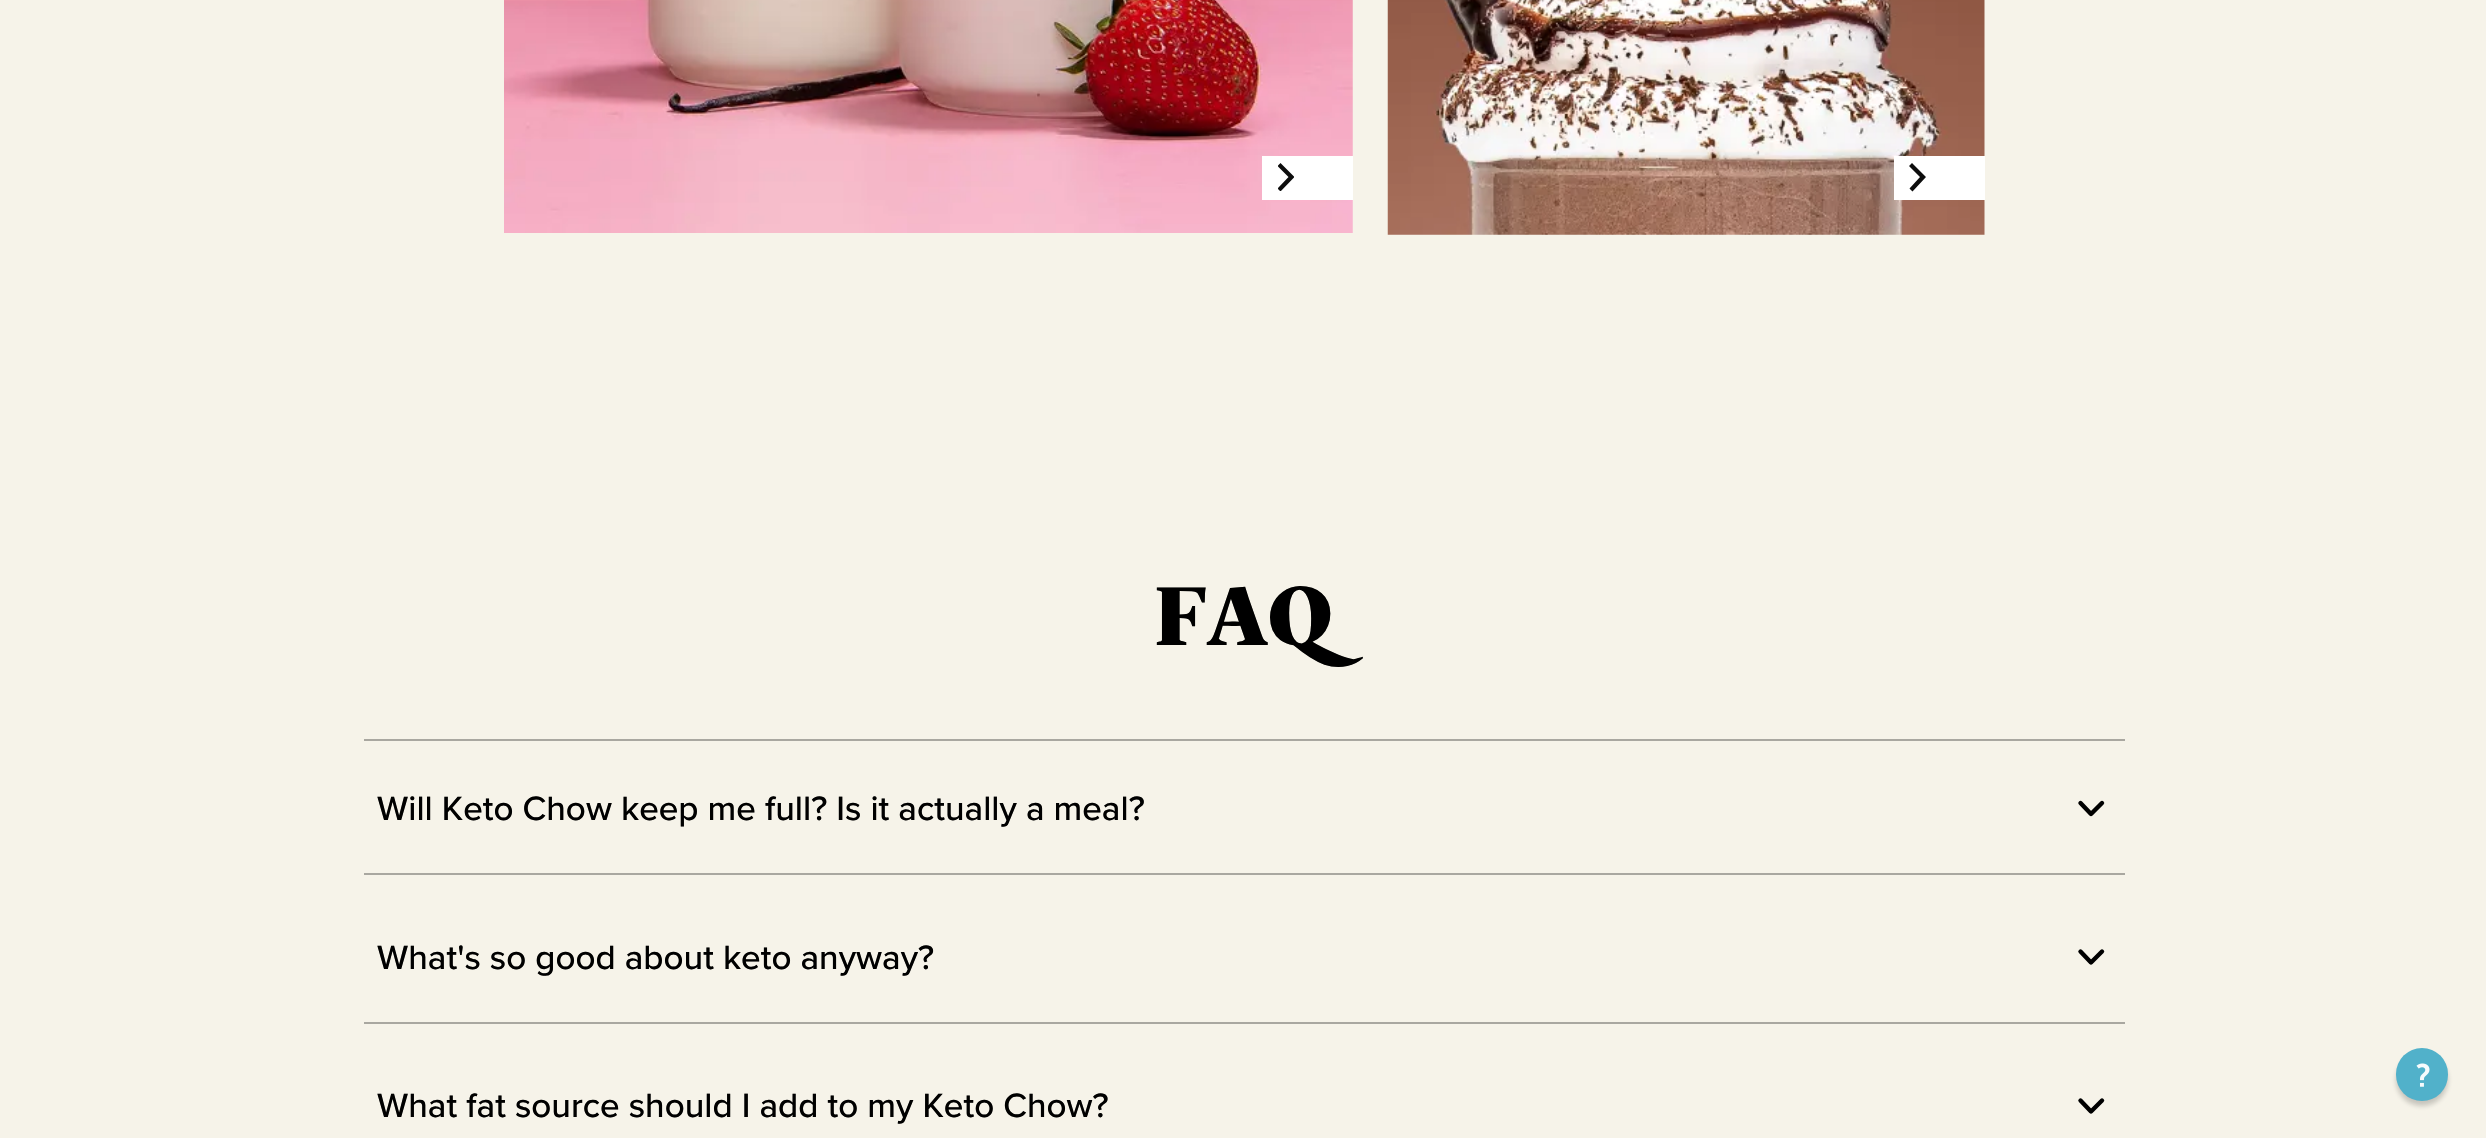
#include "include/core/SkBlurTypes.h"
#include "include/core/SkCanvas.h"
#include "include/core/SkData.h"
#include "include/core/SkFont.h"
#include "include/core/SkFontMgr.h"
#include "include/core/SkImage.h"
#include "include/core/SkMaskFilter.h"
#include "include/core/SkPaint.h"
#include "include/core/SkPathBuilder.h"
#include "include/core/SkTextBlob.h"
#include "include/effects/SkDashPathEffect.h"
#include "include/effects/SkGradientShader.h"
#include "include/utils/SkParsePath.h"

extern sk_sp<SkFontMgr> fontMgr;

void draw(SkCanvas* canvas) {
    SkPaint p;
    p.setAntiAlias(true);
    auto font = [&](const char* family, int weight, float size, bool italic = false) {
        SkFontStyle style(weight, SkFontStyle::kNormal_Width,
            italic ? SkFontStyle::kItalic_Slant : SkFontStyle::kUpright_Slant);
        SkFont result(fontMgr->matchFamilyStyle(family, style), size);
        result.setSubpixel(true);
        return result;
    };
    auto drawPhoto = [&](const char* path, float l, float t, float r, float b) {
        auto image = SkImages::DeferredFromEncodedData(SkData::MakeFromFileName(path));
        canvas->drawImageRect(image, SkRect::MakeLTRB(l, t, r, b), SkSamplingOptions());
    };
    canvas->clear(0xFFF6F3E9);
    drawPhoto("media/1.png", 504, 0, 1353, 233);
    p.setColor(0xFFFFFFFF);
    canvas->drawRect(SkRect::MakeLTRB(1262, 156, 1353, 200), p);
    canvas->save();
    canvas->clipRect(SkRect::MakeLTRB(1278, 163, 1294, 191));
    p.setColor(0xFF0D0D0D);
    canvas->drawPath(SkPathBuilder().moveTo(1280.5f, 163).lineTo(1277.5f, 166).lineTo(1288.5f, 177).lineTo(1277.5f, 188.5f).lineTo(1280.5f, 191.5f).lineTo(1294.5f, 177).close().detach(), p);
    canvas->restore();
    drawPhoto("media/2.png", 1387, 0, 1985, 235);
    p.setColor(0xFFFFFFFF);
    canvas->drawRect(SkRect::MakeLTRB(1894, 156, 1985, 200), p);
    p.setColor(0xFF0D0D0D);
    canvas->drawPath(SkPathBuilder().moveTo(1912, 163).lineTo(1909, 166).lineTo(1920, 177).lineTo(1909.5f, 188.5f).lineTo(1912.5f, 191.5f).lineTo(1926, 177).close().detach(), p);
    auto font1 = font("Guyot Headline", 900, 84);
    p.setColor(0xFF000000);
    canvas->drawString("FAQ", 1155, 645, font1, p);
    p.setColor(0xFFA9A7A0);
    canvas->drawRect(SkRect::MakeLTRB(364, 739, 2125, 741), p);
    canvas->drawRect(SkRect::MakeLTRB(364, 873, 2125, 875), p);
    auto font2 = font("Proxima Nova", 500, 35);
    p.setColor(0xFF000000);
    canvas->drawString("Will Keto Chow keep me full? Is it actually a meal?", 377, 820, font2, p);
    p.setStyle(SkPaint::kStroke_Style);
    p.setStrokeWidth(4.4f);
    p.setStrokeCap(SkPaint::kRound_Cap);
    p.setStrokeJoin(SkPaint::kRound_Join);
    canvas->drawPath(SkPathBuilder().moveTo(2102, 803).lineTo(2091, 814).lineTo(2080.5f, 803).detach(), p);
    p.setStyle(SkPaint::kFill_Style);
    p.setColor(0xFFA9A7A0);
    canvas->drawRect(SkRect::MakeLTRB(364, 1022, 2125, 1024), p);
    p.setColor(0xFF000000);
    canvas->drawString("What's so good about keto anyway?", 377, 969, font2, p);
    p.setStyle(SkPaint::kStroke_Style);
    canvas->drawPath(SkPathBuilder().moveTo(2102, 951.5f).lineTo(2091, 962.5f).lineTo(2080.5f, 951.5f).detach(), p);
    p.setStyle(SkPaint::kFill_Style);
    canvas->drawString("What fat source should I add to my Keto Chow?", 377, 1117, font2, p);
    p.setStyle(SkPaint::kStroke_Style);
    canvas->drawPath(SkPathBuilder().moveTo(2102, 1100.5f).lineTo(2091, 1111.5f).lineTo(2080.5f, 1100.5f).detach(), p);
    p.setStyle(SkPaint::kFill_Style);
    p.setColor(0x330C0C0C);
    p.setMaskFilter(SkMaskFilter::MakeBlur(kNormal_SkBlurStyle, 2.5f));
    canvas->drawRoundRect(SkRect::MakeLTRB(2396, 1054, 2448, 1106), 26, 26, p);
    p.setMaskFilter(nullptr);
    p.setColor(0xFF51B1CA);
    canvas->drawRoundRect(SkRect::MakeLTRB(2396, 1048, 2448, 1101), 26, 26, p);
    drawPhoto("media/3.png", 2416, 1063, 2430, 1087);
}
